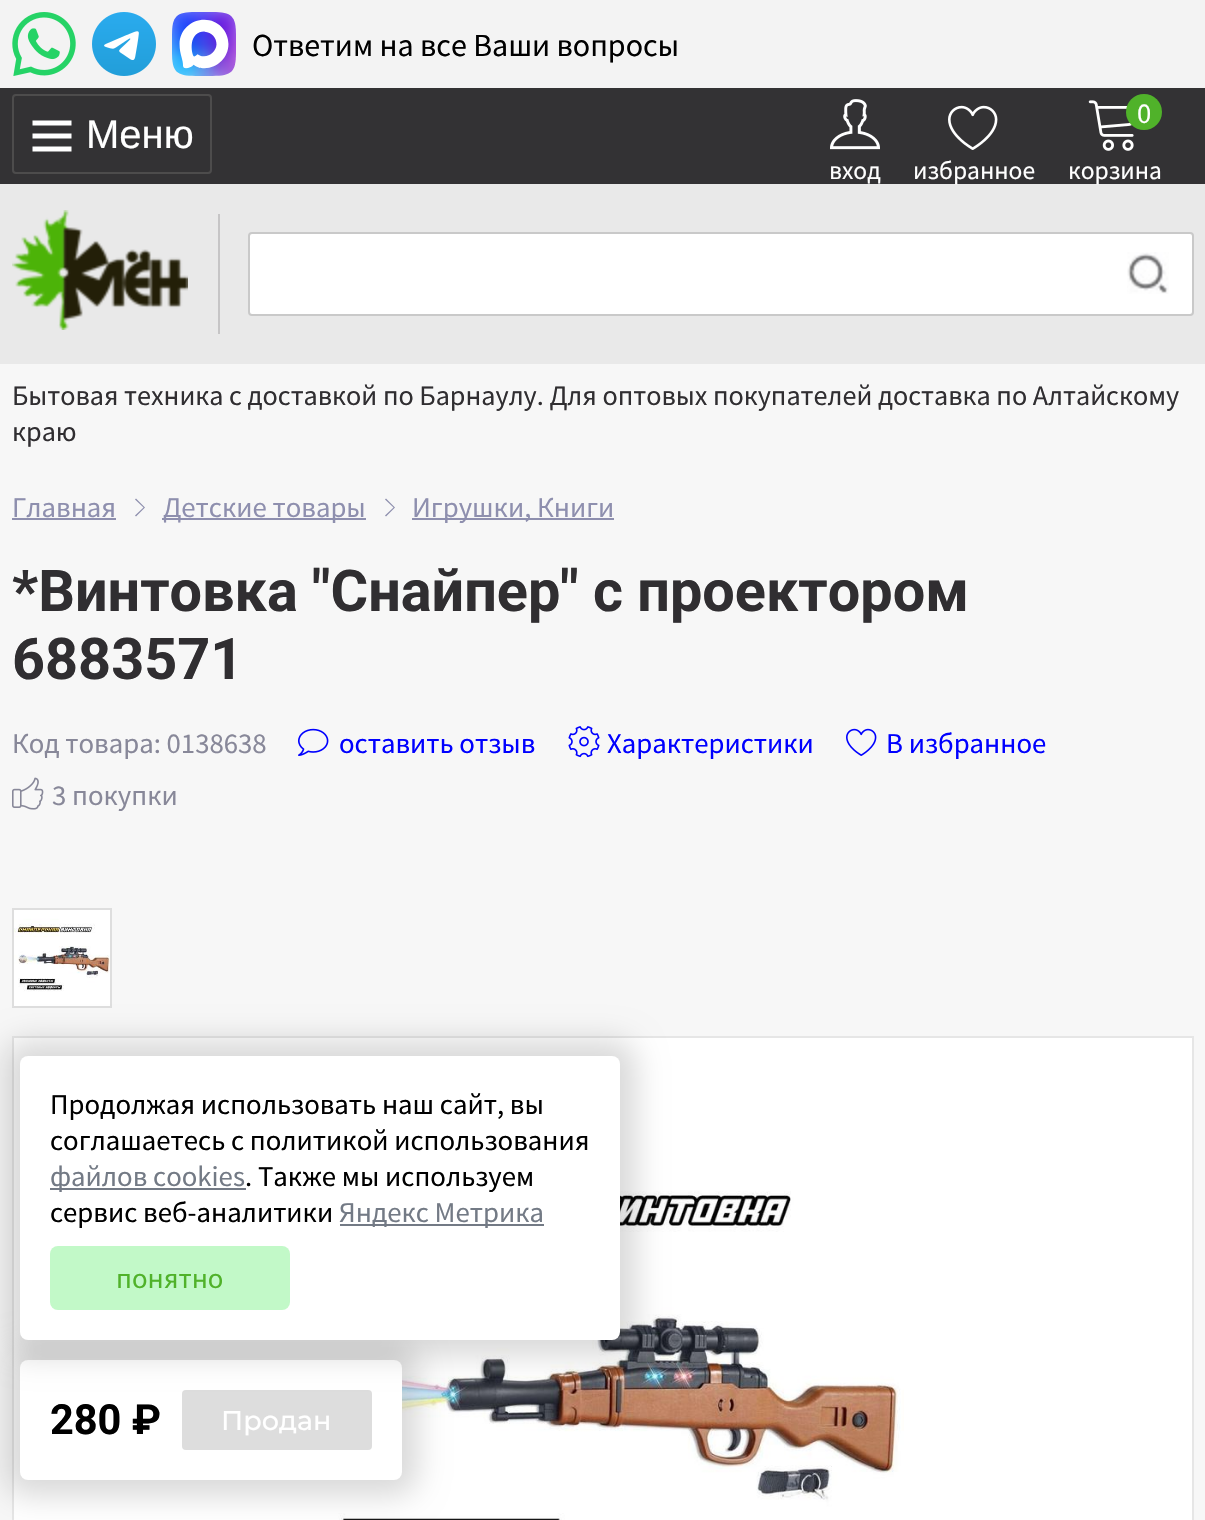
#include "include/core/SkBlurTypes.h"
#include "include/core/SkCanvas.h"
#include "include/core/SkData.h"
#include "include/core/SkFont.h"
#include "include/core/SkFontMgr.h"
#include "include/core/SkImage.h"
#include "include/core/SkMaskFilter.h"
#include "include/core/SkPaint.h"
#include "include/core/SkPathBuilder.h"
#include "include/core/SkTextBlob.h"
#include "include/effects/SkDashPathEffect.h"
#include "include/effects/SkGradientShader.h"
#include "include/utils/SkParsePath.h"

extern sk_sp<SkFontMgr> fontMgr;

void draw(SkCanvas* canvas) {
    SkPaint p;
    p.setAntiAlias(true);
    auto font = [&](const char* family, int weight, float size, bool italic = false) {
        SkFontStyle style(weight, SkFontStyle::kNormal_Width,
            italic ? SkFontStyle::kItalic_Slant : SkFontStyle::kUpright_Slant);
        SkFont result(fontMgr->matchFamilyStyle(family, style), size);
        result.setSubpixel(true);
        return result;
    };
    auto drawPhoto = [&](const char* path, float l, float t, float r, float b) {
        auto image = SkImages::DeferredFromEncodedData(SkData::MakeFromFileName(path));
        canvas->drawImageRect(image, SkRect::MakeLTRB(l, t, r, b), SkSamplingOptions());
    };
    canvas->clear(0xFFF7F7F7);
    p.setColor(0xFFF3F3F3);
    canvas->drawRect(SkRect::MakeLTRB(0, 0, 1205, 88), p);
    drawPhoto("media/1.png", 12, 12, 76, 76);
    drawPhoto("media/2.png", 92, 12, 156, 76);
    drawPhoto("media/3.png", 172, 12, 236, 76);
    auto font1 = font("Source Sans Pro", 400, 32);
    p.setColor(0xFF000000);
    canvas->drawString("Ответим на все Ваши вопросы", 252, 56, font1, p);
    p.setColor(0xFF333234);
    canvas->drawRect(SkRect::MakeLTRB(0, 88, 1205, 184), p);
    p.setStyle(SkPaint::kStroke_Style);
    p.setStrokeWidth(2);
    p.setColor(0xFF4D4C4C);
    canvas->drawRoundRect(SkRect::MakeLTRB(13, 95, 211, 173), 3, 3, p);
    p.setStyle(SkPaint::kFill_Style);
    p.setColor(0xFFFFFFFF);
    canvas->drawPath(SkPathBuilder().moveTo(71.5f, 120.5f).lineTo(71.5f, 125.5f).lineTo(32.5f, 125.5f).lineTo(32.5f, 120.5f).close().moveTo(32.5f, 138.5f).lineTo(71.5f, 138.5f).lineTo(71.5f, 133.5f).lineTo(32.5f, 133.5f).close().moveTo(32.5f, 151.5f).lineTo(71.5f, 151.5f).lineTo(71.5f, 146.5f).lineTo(32.5f, 146.5f).close().detach(), p);
    auto font2 = font("Liberation Sans", 400, 40);
    canvas->drawString("Меню", 86, 148, font2, p);
    drawPhoto("media/4.png", 830, 99, 880, 150);
    auto font3 = font("Source Sans Pro", 400, 25.5f);
    canvas->drawString("вход", 829, 179, font3, p);
    drawPhoto("media/5.png", 948, 105, 998, 150);
    p.setColor(0xFFE9E9E9);
    canvas->drawRect(SkRect::MakeLTRB(0, 184, 1205, 364), p);
    p.setColor(0xFFFFFFFF);
    canvas->drawString("избранное", 913, 179, font3, p);
    drawPhoto("media/6.png", 1088, 100, 1134, 151);
    p.setColor(0xFF50B22A);
    canvas->drawCircle(1144, 112, 18, p);
    auto font4 = font("Source Sans Pro", 400, 28.75f);
    p.setColor(0xFFFFFFFF);
    canvas->drawString("0", 1137, 123, font4, p);
    canvas->drawString("корзина", 1068, 179, font3, p);
    drawPhoto("media/7.png", 12, 210, 188, 330);
    p.setColor(0xFFC6C5C6);
    canvas->drawRect(SkRect::MakeLTRB(218, 214, 220, 334), p);
    p.setColor(0xFFFFFFFF);
    canvas->drawRoundRect(SkRect::MakeLTRB(249, 233, 1193, 315), 3, 3, p);
    p.setStyle(SkPaint::kStroke_Style);
    p.setColor(0xFFC9C9C9);
    canvas->drawRoundRect(SkRect::MakeLTRB(249, 233, 1193, 315), 3, 3, p);
    drawPhoto("media/8.png", 1127, 252, 1169, 294);
    auto font5 = font("Source Sans Pro", 400, 28.15f);
    p.setStyle(SkPaint::kFill_Style);
    p.setColor(0xFF302E31);
    canvas->drawString("Бытовая техника с доставкой по Барнаулу. Для оптовых покупателей доставка по Алтайскому", 12, 405, font5, p);
    canvas->drawString("краю", 12, 441, font5, p);
    p.setColor(0xFF8E8FAE);
    canvas->drawString("Главная", 12, 517, font4, p);
    canvas->drawRect(SkRect::MakeLTRB(12, 518, 116, 520), p);
    canvas->drawPath(SkPathBuilder().moveTo(145, 507.5f).lineTo(136, 516.5f).lineTo(135, 515.5f).lineTo(143.5f, 507.5f).lineTo(135, 499.5f).lineTo(136, 498.5f).close().detach(), p);
    canvas->drawRect(SkRect::MakeLTRB(162, 518, 366, 520), p);
    canvas->drawString("Детские товары", 163, 517, font4, p);
    canvas->drawPath(SkPathBuilder().moveTo(395, 507.5f).lineTo(386, 516.5f).lineTo(385, 515.5f).lineTo(393.5f, 507.5f).lineTo(385, 499.5f).lineTo(386, 498.5f).close().detach(), p);
    canvas->drawRect(SkRect::MakeLTRB(412, 518, 614, 520), p);
    canvas->drawString("Игрушки, Книги", 412, 517, font4, p);
    auto font6 = font("Roboto", 700, 57.6f);
    p.setColor(0xFF302E31);
    canvas->drawString("*Винтовка \"Снайпер\" с проектором", 12, 611, font6, p);
    canvas->drawString("6883571", 12, 679, font6, p);
    p.setColor(0xFF888899);
    canvas->drawString("Код товара: 0138638", 12, 753, font4, p);
    drawPhoto("media/9.png", 298, 728, 329, 756);
    p.setColor(0xFF0000FF);
    canvas->drawString("оставить отзыв", 339, 753, font4, p);
    drawPhoto("media/10.png", 568, 726, 600, 758);
    canvas->drawString("Характеристики", 607, 753, font4, p);
    drawPhoto("media/11.png", 846, 728, 877, 756);
    canvas->drawString("В избранное", 886, 753, font4, p);
    drawPhoto("media/12.png", 12, 777, 44, 810);
    p.setColor(0xFF888899);
    canvas->drawString("3 покупки", 52, 805, font4, p);
    p.setStyle(SkPaint::kStroke_Style);
    p.setColor(0xFFDEDEDE);
    canvas->drawRect(SkRect::MakeLTRB(13, 909, 111, 1007), p);
    drawPhoto("media/13.png", 14, 910, 110, 1006);
    p.setStyle(SkPaint::kFill_Style);
    p.setColor(0xFFFFFFFF);
    canvas->drawRect(SkRect::MakeLTRB(13, 1037, 1193, 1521), p);
    p.setStyle(SkPaint::kStroke_Style);
    p.setColor(0xFFE6E6E6);
    canvas->drawRect(SkRect::MakeLTRB(13, 1037, 1193, 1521), p);
    drawPhoto("media/14.png", 325, 1184, 904, 1520);
    p.setStyle(SkPaint::kFill_Style);
    p.setColor(0x26000000);
    p.setMaskFilter(SkMaskFilter::MakeBlur(kNormal_SkBlurStyle, 15));
    canvas->drawRoundRect(SkRect::MakeLTRB(4, 1344, 418, 1496), 24, 24, p);
    p.setMaskFilter(nullptr);
    p.setColor(0xFFFFFFFF);
    canvas->drawRoundRect(SkRect::MakeLTRB(20, 1360, 402, 1480), 8, 8, p);
    p.setColor(0xFFDDDDDD);
    canvas->drawRoundRect(SkRect::MakeLTRB(182, 1390, 372, 1450), 4, 4, p);
    p.setColor(0x26000000);
    p.setMaskFilter(SkMaskFilter::MakeBlur(kNormal_SkBlurStyle, 15));
    canvas->drawRoundRect(SkRect::MakeLTRB(4, 1040, 636, 1356), 24, 24, p);
    p.setMaskFilter(nullptr);
    p.setColor(0xFFFFFFFF);
    canvas->drawRoundRect(SkRect::MakeLTRB(20, 1056, 620, 1340), 8, 8, p);
    p.setColor(0xFF000000);
    canvas->drawString("Продолжая использовать наш сайт, вы", 50, 1114, font4, p);
    canvas->drawString("соглашаетесь с политикой использования", 50, 1150, font4, p);
    p.setColor(0xFF737A85);
    canvas->drawRect(SkRect::MakeLTRB(50, 1188, 246, 1190), p);
    canvas->drawString("файлов cookies", 50, 1186, font4, p);
    p.setColor(0xFF000000);
    canvas->drawString(". Также мы используем", 245, 1186, font4, p);
    canvas->drawString("сервис веб-аналитики", 50, 1222, font4, p);
    p.setColor(0xFF737A85);
    canvas->drawRect(SkRect::MakeLTRB(340, 1224, 544, 1226), p);
    canvas->drawString("Яндекс Метрика", 339, 1222, font4, p);
    p.setColor(0xFFC2F9C8);
    canvas->drawRoundRect(SkRect::MakeLTRB(50, 1246, 290, 1310), 8, 8, p);
    p.setColor(0xFF50B22A);
    canvas->drawString("понятно", 116, 1288, font4, p);
    auto font7 = font("Roboto", 700, 41.5f);
    p.setColor(0xFF000000);
    canvas->drawString("280 ₽", 50, 1434, font7, p);
    auto font8 = font("Montserrat", 500, 27);
    p.setColor(0xFFFFFFFF);
    canvas->drawString("Продан", 221, 1430, font8, p);
}
